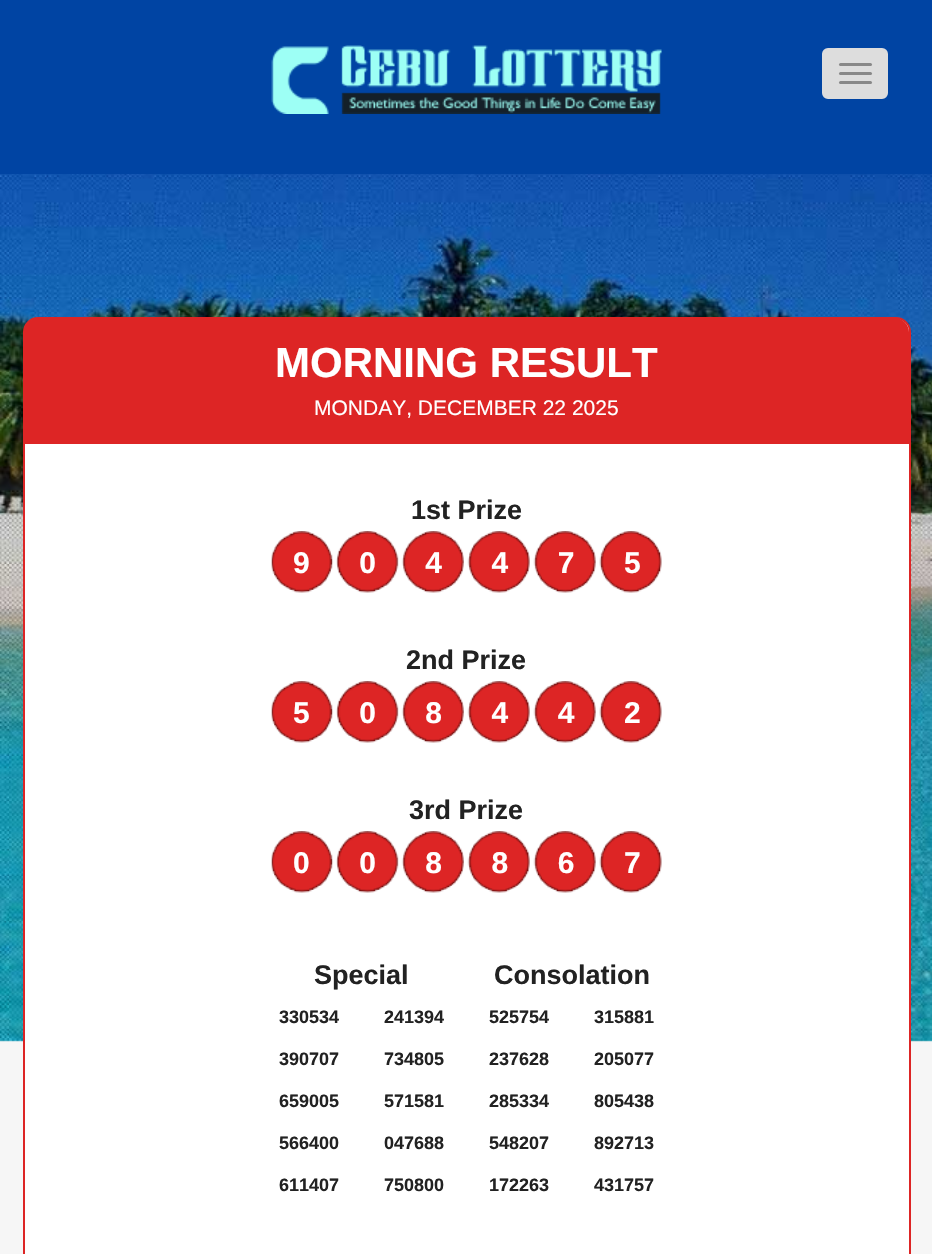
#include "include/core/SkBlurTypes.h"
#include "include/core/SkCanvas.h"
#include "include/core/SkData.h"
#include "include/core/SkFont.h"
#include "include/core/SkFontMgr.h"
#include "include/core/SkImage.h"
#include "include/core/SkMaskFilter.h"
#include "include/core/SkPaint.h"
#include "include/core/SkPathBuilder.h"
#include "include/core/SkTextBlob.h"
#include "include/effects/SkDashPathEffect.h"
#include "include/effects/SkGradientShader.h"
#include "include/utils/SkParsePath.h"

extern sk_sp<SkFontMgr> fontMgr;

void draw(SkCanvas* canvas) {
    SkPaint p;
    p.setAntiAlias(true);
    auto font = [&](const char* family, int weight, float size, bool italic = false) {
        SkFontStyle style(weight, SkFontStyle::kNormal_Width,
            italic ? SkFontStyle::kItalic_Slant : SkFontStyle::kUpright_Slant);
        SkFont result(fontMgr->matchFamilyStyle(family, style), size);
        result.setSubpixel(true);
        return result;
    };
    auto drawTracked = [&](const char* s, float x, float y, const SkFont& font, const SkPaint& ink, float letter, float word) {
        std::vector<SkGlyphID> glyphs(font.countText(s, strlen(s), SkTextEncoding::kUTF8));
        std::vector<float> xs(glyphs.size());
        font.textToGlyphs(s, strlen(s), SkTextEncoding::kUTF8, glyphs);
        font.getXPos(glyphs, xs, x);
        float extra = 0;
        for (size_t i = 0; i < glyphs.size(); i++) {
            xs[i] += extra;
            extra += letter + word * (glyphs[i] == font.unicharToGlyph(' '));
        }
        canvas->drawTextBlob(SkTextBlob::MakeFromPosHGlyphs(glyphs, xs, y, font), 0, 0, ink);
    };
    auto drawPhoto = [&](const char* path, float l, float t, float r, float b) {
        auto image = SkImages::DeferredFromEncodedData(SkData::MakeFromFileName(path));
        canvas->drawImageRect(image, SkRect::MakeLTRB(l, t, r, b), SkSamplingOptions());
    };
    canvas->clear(0xFFF6F6F6);
    p.setColor(0xFF0044A3);
    canvas->drawRect(SkRect::MakeLTRB(0, 0, 932, 174), p);
    drawPhoto("media/1.png", 271, 45, 662, 114);
    p.setColor(0xFFDDDDDD);
    canvas->drawRoundRect(SkRect::MakeLTRB(823, 49, 887, 98), 5, 5, p);
    p.setStyle(SkPaint::kStroke_Style);
    p.setStrokeWidth(2);
    canvas->drawRoundRect(SkRect::MakeLTRB(823, 49, 887, 98), 5, 5, p);
    p.setStyle(SkPaint::kFill_Style);
    p.setColor(0xFF888888);
    canvas->drawRoundRect(SkRect::MakeLTRB(839, 63, 872, 66), 1.5f, 1.5f, p);
    canvas->drawRoundRect(SkRect::MakeLTRB(839, 72, 872, 75), 1.5f, 1.5f, p);
    canvas->drawRoundRect(SkRect::MakeLTRB(839, 81, 872, 84), 1.5f, 1.5f, p);
    drawPhoto("media/2.png", 0, 174, 932, 1042);
    p.setColor(0xFFFFFFFF);
    canvas->drawRoundRect(SkRect::MakeLTRB(24, 318, 910, 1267), 14, 14, p);
    p.setStyle(SkPaint::kStroke_Style);
    p.setColor(0xFFDD2525);
    canvas->drawRoundRect(SkRect::MakeLTRB(24, 318, 910, 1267), 14, 14, p);
    p.setStyle(SkPaint::kFill_Style);
    canvas->drawPath(SkPathBuilder().moveTo(38, 318).lineTo(895, 318).cubicTo(902.5f, 318, 909, 324.5f, 909, 332).lineTo(909, 444).lineTo(24, 444).lineTo(24, 332).cubicTo(24, 324.5f, 30.5f, 318, 38, 318).close().detach(), p);
    auto font1 = font("Liberation Sans", 700, 42);
    p.setColor(0xFFFFFFFF);
    canvas->drawString("MORNING RESULT", 275, 377, font1, p);
    auto font2 = font("Liberation Sans", 400, 21);
    canvas->drawString("MONDAY, DECEMBER 22 2025", 314, 415, font2, p);
    auto font3 = font("Liberation Sans", 700, 27);
    p.setColor(0xFF222222);
    canvas->drawString("1st Prize", 411, 519, font3, p);
    drawPhoto("media/3.png", 271, 531, 662, 593);
    auto font4 = font("Liberation Sans", 700, 30);
    p.setColor(0xFFFFFFFF);
    drawTracked("904475", 293, 573, font4, p, 49.5f, 0);
    p.setColor(0xFF222222);
    canvas->drawString("2nd Prize", 406, 669, font3, p);
    drawPhoto("media/3.png", 271, 681, 662, 743);
    p.setColor(0xFFFFFFFF);
    drawTracked("508442", 293, 723, font4, p, 49.5f, 0);
    p.setColor(0xFF222222);
    canvas->drawString("3rd Prize", 409, 819, font3, p);
    drawPhoto("media/3.png", 271, 831, 662, 893);
    p.setColor(0xFFFFFFFF);
    drawTracked("008867", 293, 873, font4, p, 49.5f, 0);
    p.setColor(0xFF222222);
    canvas->drawString("Special", 314, 984, font3, p);
    auto font5 = font("Liberation Sans", 700, 18);
    {
        const struct { const char* s; float x, y; } items[] = {
            {"330534", 279, 1023},
            {"390707", 279, 1065},
            {"659005", 279, 1107},
            {"566400", 279, 1149},
            {"611407", 279, 1191},
            {"241394", 384, 1023},
            {"734805", 384, 1065},
            {"571581", 384, 1107},
            {"047688", 384, 1149},
            {"750800", 384, 1191},
        };
        for (auto [s, x, y] : items) {
            canvas->drawString(s, x, y, font5, p);
        }
    }
    canvas->drawString("Consolation", 494, 984, font3, p);
    {
        const struct { const char* s; float x, y; } items[] = {
            {"525754", 489, 1023},
            {"237628", 489, 1065},
            {"285334", 489, 1107},
            {"548207", 489, 1149},
            {"172263", 489, 1191},
            {"315881", 594, 1023},
            {"205077", 594, 1065},
            {"805438", 594, 1107},
            {"892713", 594, 1149},
            {"431757", 594, 1191},
        };
        for (auto [s, x, y] : items) {
            canvas->drawString(s, x, y, font5, p);
        }
    }
}
